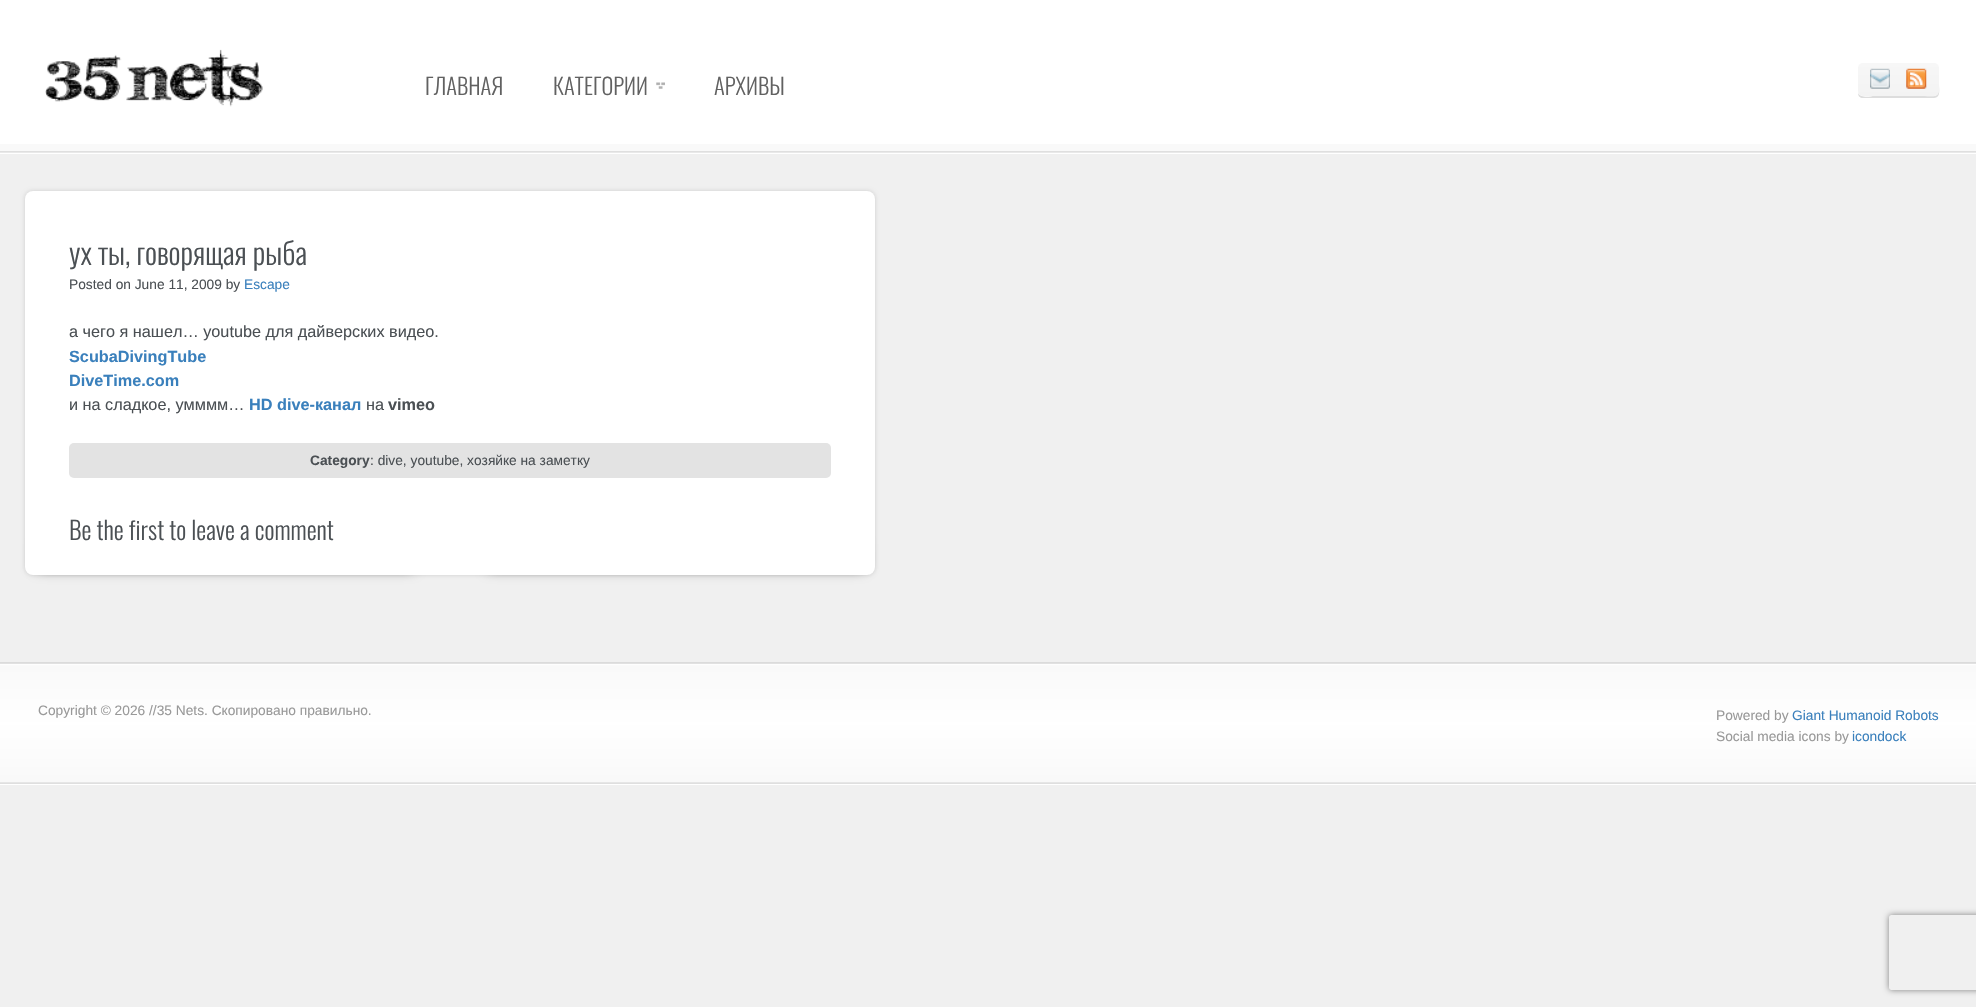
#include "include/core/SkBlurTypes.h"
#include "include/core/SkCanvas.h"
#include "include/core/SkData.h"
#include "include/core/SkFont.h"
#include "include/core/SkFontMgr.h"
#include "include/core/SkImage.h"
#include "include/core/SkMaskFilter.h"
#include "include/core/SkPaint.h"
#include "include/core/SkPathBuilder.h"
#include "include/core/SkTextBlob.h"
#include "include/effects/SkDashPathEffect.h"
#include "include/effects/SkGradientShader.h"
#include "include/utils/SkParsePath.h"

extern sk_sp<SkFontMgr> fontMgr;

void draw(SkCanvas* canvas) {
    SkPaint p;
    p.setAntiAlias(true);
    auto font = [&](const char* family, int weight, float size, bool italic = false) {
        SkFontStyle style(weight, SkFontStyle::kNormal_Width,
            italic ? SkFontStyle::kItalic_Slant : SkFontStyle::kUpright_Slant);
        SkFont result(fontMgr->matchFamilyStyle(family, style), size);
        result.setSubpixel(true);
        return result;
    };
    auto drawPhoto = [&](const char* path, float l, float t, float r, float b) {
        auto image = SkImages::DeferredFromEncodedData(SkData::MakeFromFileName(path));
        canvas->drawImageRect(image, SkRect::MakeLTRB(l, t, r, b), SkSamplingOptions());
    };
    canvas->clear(0xFFF0F0F0);
    p.setColor(0xFFFFFFFF);
    canvas->drawRect(SkRect::MakeLTRB(0, 0, 1976, 154), p);
    drawPhoto("media/1.png", 0, 144, 1976, 153);
    drawPhoto("media/2.png", 45, 49, 263, 107);
    auto font1 = font("Oswald", 300, 22.5f);
    p.setColor(0xFF616161);
    canvas->drawString("ГЛАВНАЯ", 425, 95, font1, p);
    canvas->drawString("КАТЕГОРИИ", 553, 95, font1, p);
    drawPhoto("media/3.png", 656, 82, 665, 89);
    canvas->drawString("АРХИВЫ", 714, 95, font1, p);
    p.setColor(0xFFDDDDDD);
    canvas->drawPath(SkPathBuilder().moveTo(1858, 93).cubicTo(1858, 96, 1860, 98, 1863, 98).lineTo(1934, 98).cubicTo(1941, 98, 1939, 89, 1939, 85).lineTo(1939, 67).lineTo(1939, 87).cubicTo(1939, 99, 1934, 96, 1922, 96).lineTo(1874, 96).cubicTo(1872, 96, 1861, 99, 1858, 93).close().detach(), p);
    {
        const SkColor colors[] = {0xFFF3F3F3, 0xFFF7F7F7};
        const float stops[] = {0, 1};
        const SkPoint ends[] = {{1858, 96}, {1858, 63}};
        p.setShader(SkGradientShader::MakeLinear(ends, colors, stops, 2, SkTileMode::kClamp));
        p.setAlpha(255);
    }
    canvas->drawRoundRect(SkRect::MakeLTRB(1858, 63, 1939, 96), 5, 5, p);
    drawPhoto("media/4.png", 1870, 68, 1890, 89);
    drawPhoto("media/5.png", 1906, 68, 1927, 89);
    p.setShader(nullptr);
    p.setColor(0x26000000);
    p.setMaskFilter(SkMaskFilter::MakeBlur(kNormal_SkBlurStyle, 2));
    canvas->drawRoundRect(SkRect::MakeLTRB(25, 191, 875, 575), 8, 8, p);
    p.setMaskFilter(nullptr);
    p.setColor(0x80000000);
    p.setMaskFilter(SkMaskFilter::MakeBlur(kNormal_SkBlurStyle, 6.5f));
    canvas->drawRect(SkRect::MakeLTRB(38, 544, 413, 569), p);
    p.setMaskFilter(nullptr);
    p.setMaskFilter(SkMaskFilter::MakeBlur(kNormal_SkBlurStyle, 6.5f));
    canvas->drawRect(SkRect::MakeLTRB(488, 544, 863, 569), p);
    p.setMaskFilter(nullptr);
    p.setColor(0xFFFFFFFF);
    canvas->drawRoundRect(SkRect::MakeLTRB(25, 191, 875, 575), 8, 8, p);
    auto font2 = font("Oswald", 300, 30);
    p.setColor(0xFF4B5054);
    canvas->drawString("ух ты, говорящая рыба", 69, 265, font2, p);
    auto font3 = font("Liberation Sans", 400, 13.75f);
    canvas->drawString("Posted on June 11, 2009 by", 69, 289, font3, p);
    p.setColor(0xFF3A80BC);
    canvas->drawString("Escape", 244, 289, font3, p);
    auto font4 = font("Liberation Sans", 400, 16.25f);
    p.setColor(0xFF4B5054);
    canvas->drawString("а чего я нашел… youtube для дайверских видео.", 69, 337, font4, p);
    auto font5 = font("Liberation Sans", 700, 16.25f);
    p.setColor(0xFF3A80BC);
    canvas->drawString("ScubaDivingTube", 69, 362, font5, p);
    canvas->drawString("DiveTime.com", 69, 386, font5, p);
    p.setColor(0xFF4B5054);
    canvas->drawString("и на сладкое, умммм…", 69, 410, font4, p);
    p.setColor(0xFF3A80BC);
    canvas->drawString("HD dive-канал", 249, 410, font5, p);
    p.setColor(0xFF4B5054);
    canvas->drawString("на", 366, 410, font4, p);
    canvas->drawString("vimeo", 388, 410, font5, p);
    p.setColor(0xFFE3E3E3);
    canvas->drawRoundRect(SkRect::MakeLTRB(69, 443, 831, 478), 5, 5, p);
    auto font6 = font("Liberation Sans", 700, 13.75f);
    p.setColor(0xFF4B5054);
    canvas->drawString("Category", 310, 465, font6, p);
    canvas->drawString(": dive, youtube, хозяйке на заметку", 370, 465, font3, p);
    auto font7 = font("Oswald", 300, 25);
    canvas->drawString("Be the first to leave a comment", 69, 540, font7, p);
    p.setColor(0xFFFFFFFF);
    canvas->drawRect(SkRect::MakeLTRB(0, 663, 1976, 785), p);
    drawPhoto("media/6.png", 0, 662, 1976, 784);
    p.setColor(0xFF999999);
    canvas->drawString("Copyright © 2026 //35 Nets. Скопировано правильно.", 38, 715, font3, p);
    canvas->drawString("Powered by", 1716, 720, font3, p);
    p.setColor(0xFF3A80BC);
    canvas->drawString("Giant Humanoid Robots", 1792, 720, font3, p);
    p.setColor(0xFF999999);
    canvas->drawString("Social media icons by", 1716, 741, font3, p);
    p.setColor(0xFF3A80BC);
    canvas->drawString("icondock", 1852, 741, font3, p);
    canvas->save();
    canvas->clipPath(SkPathBuilder(SkPathFillType::kEvenOdd).moveTo(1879, 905).lineTo(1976, 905).lineTo(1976, 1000).lineTo(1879, 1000).close().moveTo(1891.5f, 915).lineTo(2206.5f, 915).cubicTo(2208, 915, 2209, 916, 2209, 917.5f).lineTo(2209, 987.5f).cubicTo(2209, 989, 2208, 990, 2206.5f, 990).lineTo(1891.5f, 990).cubicTo(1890, 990, 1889, 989, 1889, 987.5f).lineTo(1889, 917.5f).cubicTo(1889, 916, 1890, 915, 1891.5f, 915).close().detach(), true);
    p.setColor(0xFF808080);
    p.setMaskFilter(SkMaskFilter::MakeBlur(kNormal_SkBlurStyle, 3));
    canvas->drawRoundRect(SkRect::MakeLTRB(1889, 915, 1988, 990), 2.5f, 2.5f, p);
    p.setMaskFilter(nullptr);
    canvas->restore();
}
